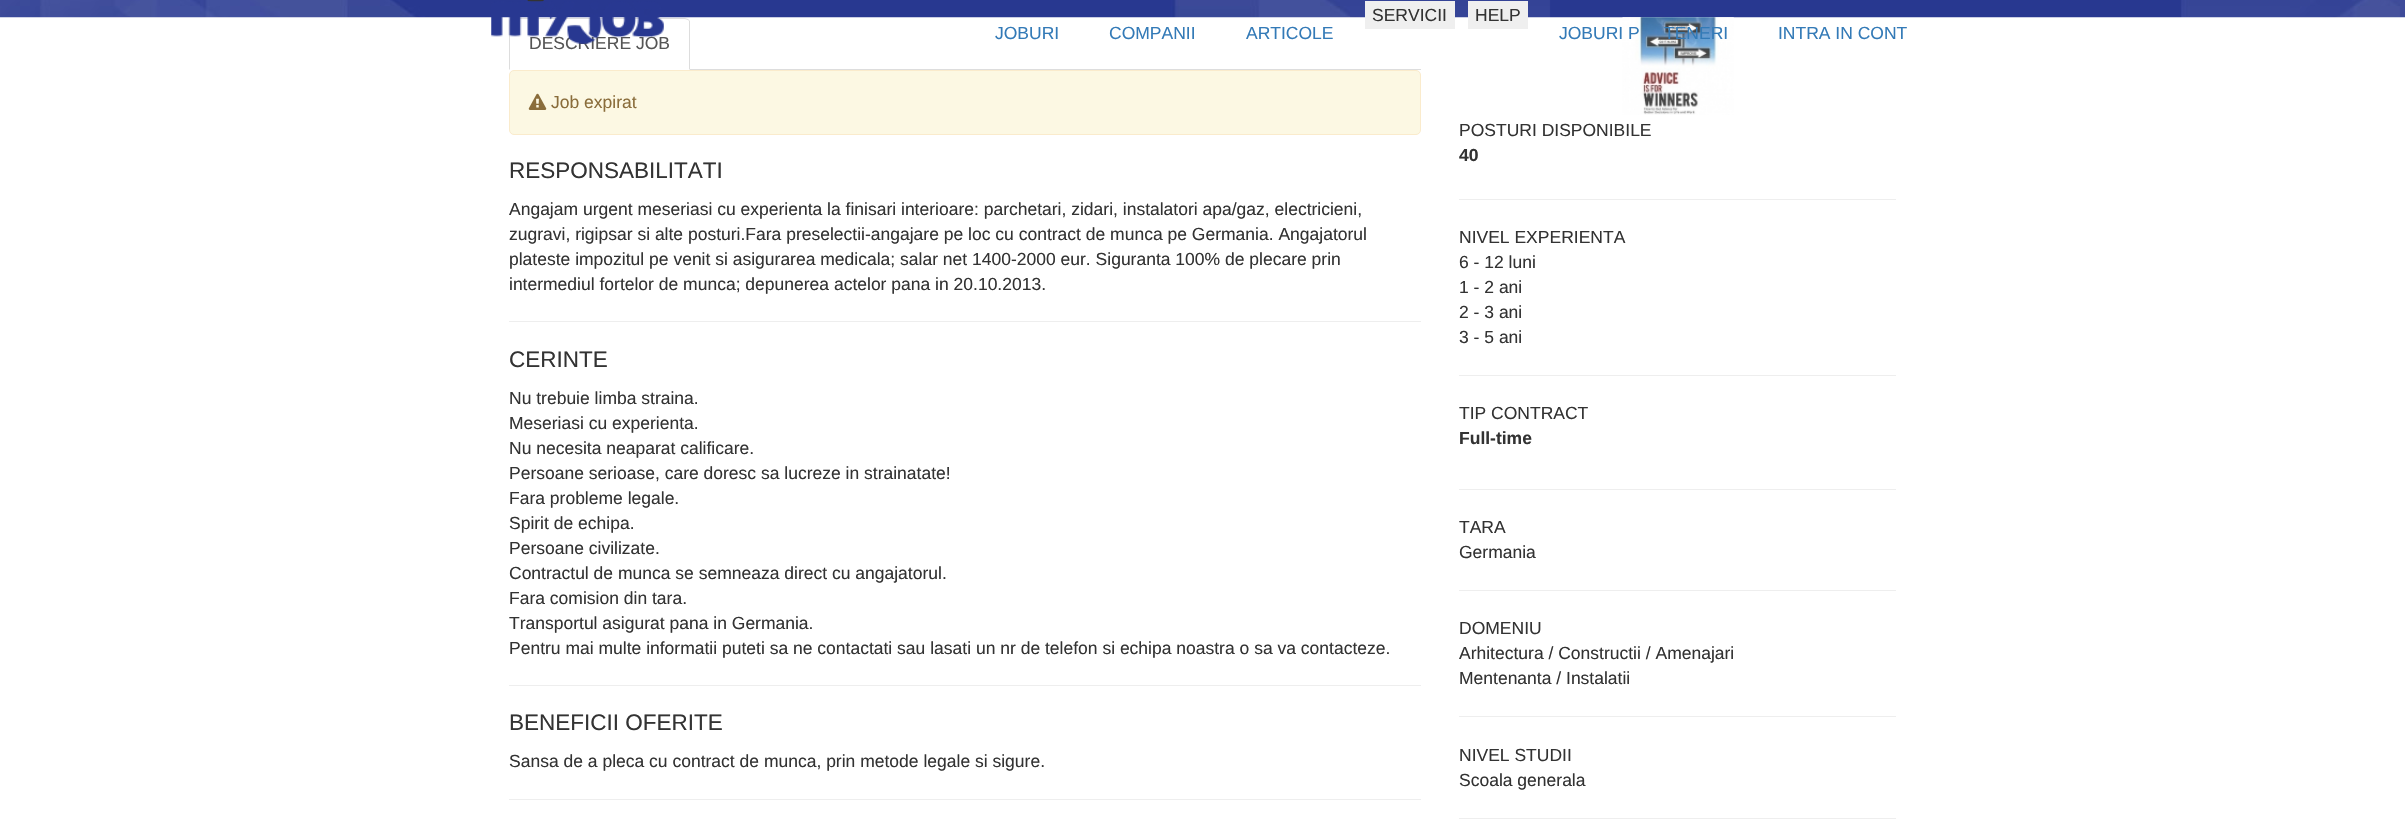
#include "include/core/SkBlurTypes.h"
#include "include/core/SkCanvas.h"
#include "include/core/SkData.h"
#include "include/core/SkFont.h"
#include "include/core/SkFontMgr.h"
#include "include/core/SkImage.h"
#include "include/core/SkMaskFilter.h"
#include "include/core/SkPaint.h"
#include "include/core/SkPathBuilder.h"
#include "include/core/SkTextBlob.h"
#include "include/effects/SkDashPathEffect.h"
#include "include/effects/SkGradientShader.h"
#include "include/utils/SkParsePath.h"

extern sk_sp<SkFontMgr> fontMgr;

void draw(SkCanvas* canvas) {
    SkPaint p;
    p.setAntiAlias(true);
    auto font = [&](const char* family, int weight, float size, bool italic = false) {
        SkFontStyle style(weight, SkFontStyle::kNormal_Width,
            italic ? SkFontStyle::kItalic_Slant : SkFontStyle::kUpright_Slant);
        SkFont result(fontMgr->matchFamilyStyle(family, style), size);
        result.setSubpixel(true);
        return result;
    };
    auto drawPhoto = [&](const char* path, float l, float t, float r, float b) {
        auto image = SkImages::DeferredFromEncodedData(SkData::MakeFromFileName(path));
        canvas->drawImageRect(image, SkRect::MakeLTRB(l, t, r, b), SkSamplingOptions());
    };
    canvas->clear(0xFFFFFFFF);
    drawPhoto("media/2.png", 0, 0, 2405, 18);
    drawPhoto("media/3.png", 527, 0, 544, 2);
    p.setColor(0xFFDDDDDD);
    canvas->drawPath(SkPathBuilder().moveTo(514, 18).lineTo(510, 19).lineTo(511, 20).lineTo(514, 19).lineTo(685, 19).lineTo(688, 20).lineTo(688, 19).lineTo(685, 18).close().detach(), p);
    canvas->drawPath(SkPathBuilder().moveTo(510, 19).lineTo(509, 21).lineTo(509, 70).lineTo(510, 69).lineTo(510, 21).lineTo(511, 20).close().detach(), p);
    auto font1 = font("Liberation Sans", 400, 17.5f);
    p.setColor(0xFF555555);
    canvas->drawString("DESCRIERE JOB", 529, 49, font1, p);
    drawPhoto("media/1.png", 491, 1, 664, 44);
    p.setColor(0xFFEFEFEF);
    canvas->drawRect(SkRect::MakeLTRB(1365, 1, 1455, 29), p);
    p.setColor(0xFF333333);
    canvas->drawString("SERVICII", 1372, 21, font1, p);
    p.setColor(0xFFEFEFEF);
    canvas->drawRect(SkRect::MakeLTRB(1468, 1, 1528, 29), p);
    p.setColor(0xFF333333);
    canvas->drawString("HELP", 1475, 21, font1, p);
    p.setColor(0xFF337AB7);
    {
        const struct { const char* s; float x, y; } items[] = {
            {"JOBURI", 995, 39},
            {"COMPANII", 1109, 39},
            {"ARTICOLE", 1246, 39},
        };
        for (auto [s, x, y] : items) {
            canvas->drawString(s, x, y, font1, p);
        }
    }
    drawPhoto("media/5.png", 1622, 17, 1734, 115);
    {
        const struct { const char* s; float x, y; } items[] = {
            {"JOBURI P", 1559, 39},
            {"TENERI", 1664, 39},
            {"INTRA IN CONT", 1778, 39},
        };
        for (auto [s, x, y] : items) {
            canvas->drawString(s, x, y, font1, p);
        }
    }
    p.setColor(0xFFDDDDDD);
    canvas->drawRect(SkRect::MakeLTRB(690, 69, 1421, 70), p);
    canvas->drawPath(SkPathBuilder().moveTo(690, 70).lineTo(690, 21).lineTo(688, 19).lineTo(688, 20).lineTo(689, 21).lineTo(689, 69).close().detach(), p);
    p.setColor(0xFFFCF8E3);
    canvas->drawRoundRect(SkRect::MakeLTRB(509.5f, 70.5f, 1420.5f, 134.5f), 4.5f, 4.5f, p);
    p.setStyle(SkPaint::kStroke_Style);
    p.setStrokeWidth(1);
    p.setColor(0xFFFAEBCC);
    canvas->drawRoundRect(SkRect::MakeLTRB(509.5f, 70.5f, 1420.5f, 134.5f), 4.5f, 4.5f, p);
    drawPhoto("media/4.png", 528, 93, 547, 110);
    p.setStyle(SkPaint::kFill_Style);
    p.setColor(0xFF8A6D3B);
    canvas->drawString("Job expirat", 551, 108, font1, p);
    auto font2 = font("Liberation Sans", 400, 22.5f);
    p.setColor(0xFF333333);
    canvas->drawString("RESPONSABILITATI", 509, 178, font2, p);
    {
        const struct { const char* s; float x, y; } items[] = {
            {"Angajam urgent meseriasi cu experienta la finisari interioare: parchetari, zidari, instalatori apa/gaz, electricieni,", 509, 215},
            {"zugravi, rigipsar si alte posturi.Fara preselectii-angajare pe loc cu contract de munca pe Germania. Angajatorul", 509, 240},
            {"plateste impozitul pe venit si asigurarea medicala; salar net 1400-2000 eur. Siguranta 100% de plecare prin", 509, 265},
            {"intermediul fortelor de munca; depunerea actelor pana in 20.10.2013.", 509, 290},
        };
        for (auto [s, x, y] : items) {
            canvas->drawString(s, x, y, font1, p);
        }
    }
    p.setColor(0xFFEEEEEE);
    canvas->drawRect(SkRect::MakeLTRB(509, 321, 1421, 322), p);
    p.setColor(0xFF333333);
    canvas->drawString("CERINTE", 509, 367, font2, p);
    {
        const struct { const char* s; float x, y; } items[] = {
            {"Nu trebuie limba straina.", 509, 404},
            {"Meseriasi cu experienta.", 509, 429},
            {"Nu necesita neaparat calificare.", 509, 454},
            {"Persoane serioase, care doresc sa lucreze in strainatate!", 509, 479},
            {"Fara probleme legale.", 509, 504},
            {"Spirit de echipa.", 509, 529},
            {"Persoane civilizate.", 509, 554},
            {"Contractul de munca se semneaza direct cu angajatorul.", 509, 579},
            {"Fara comision din tara.", 509, 604},
            {"Transportul asigurat pana in Germania.", 509, 629},
            {"Pentru mai multe informatii puteti sa ne contactati sau lasati un nr de telefon si echipa noastra o sa va contacteze.", 509, 654},
        };
        for (auto [s, x, y] : items) {
            canvas->drawString(s, x, y, font1, p);
        }
    }
    p.setColor(0xFFEEEEEE);
    canvas->drawRect(SkRect::MakeLTRB(509, 685, 1421, 686), p);
    p.setColor(0xFF333333);
    canvas->drawString("BENEFICII OFERITE", 509, 730, font2, p);
    canvas->drawString("Sansa de a pleca cu contract de munca, prin metode legale si sigure.", 509, 767, font1, p);
    p.setColor(0xFFEEEEEE);
    canvas->drawRect(SkRect::MakeLTRB(509, 799, 1421, 800), p);
    p.setColor(0xFF333333);
    canvas->drawString("POSTURI DISPONIBILE", 1459, 136, font1, p);
    auto font3 = font("Liberation Sans", 700, 17.5f);
    canvas->drawString("40", 1459, 161, font3, p);
    p.setColor(0xFFEEEEEE);
    canvas->drawRect(SkRect::MakeLTRB(1459, 199, 1896, 200), p);
    p.setColor(0xFF333333);
    {
        const struct { const char* s; float x, y; } items[] = {
            {"NIVEL EXPERIENTA", 1459, 243},
            {"6 - 12 luni", 1459, 268},
            {"1 - 2 ani", 1459, 293},
            {"2 - 3 ani", 1459, 318},
            {"3 - 5 ani", 1459, 343},
        };
        for (auto [s, x, y] : items) {
            canvas->drawString(s, x, y, font1, p);
        }
    }
    p.setColor(0xFFEEEEEE);
    canvas->drawRect(SkRect::MakeLTRB(1459, 375, 1896, 376), p);
    p.setColor(0xFF333333);
    canvas->drawString("TIP CONTRACT", 1459, 419, font1, p);
    canvas->drawString("Full-time", 1459, 444, font3, p);
    p.setColor(0xFFEEEEEE);
    canvas->drawRect(SkRect::MakeLTRB(1459, 489, 1896, 490), p);
    p.setColor(0xFF333333);
    canvas->drawString("TARA", 1459, 533, font1, p);
    canvas->drawString("Germania", 1459, 558, font1, p);
    p.setColor(0xFFEEEEEE);
    canvas->drawRect(SkRect::MakeLTRB(1459, 590, 1896, 591), p);
    p.setColor(0xFF333333);
    {
        const struct { const char* s; float x, y; } items[] = {
            {"DOMENIU", 1459, 634},
            {"Arhitectura / Constructii / Amenajari", 1459, 659},
            {"Mentenanta / Instalatii", 1459, 684},
        };
        for (auto [s, x, y] : items) {
            canvas->drawString(s, x, y, font1, p);
        }
    }
    p.setColor(0xFFEEEEEE);
    canvas->drawRect(SkRect::MakeLTRB(1459, 716, 1896, 717), p);
    p.setColor(0xFF333333);
    canvas->drawString("NIVEL STUDII", 1459, 761, font1, p);
    canvas->drawString("Scoala generala", 1459, 786, font1, p);
    p.setColor(0xFFEEEEEE);
    canvas->drawRect(SkRect::MakeLTRB(1459, 818, 1896, 819), p);
}
